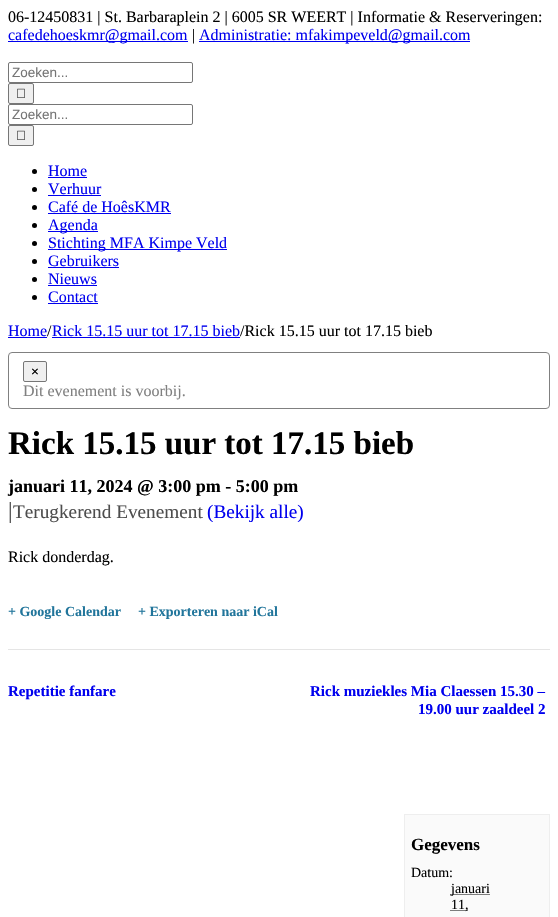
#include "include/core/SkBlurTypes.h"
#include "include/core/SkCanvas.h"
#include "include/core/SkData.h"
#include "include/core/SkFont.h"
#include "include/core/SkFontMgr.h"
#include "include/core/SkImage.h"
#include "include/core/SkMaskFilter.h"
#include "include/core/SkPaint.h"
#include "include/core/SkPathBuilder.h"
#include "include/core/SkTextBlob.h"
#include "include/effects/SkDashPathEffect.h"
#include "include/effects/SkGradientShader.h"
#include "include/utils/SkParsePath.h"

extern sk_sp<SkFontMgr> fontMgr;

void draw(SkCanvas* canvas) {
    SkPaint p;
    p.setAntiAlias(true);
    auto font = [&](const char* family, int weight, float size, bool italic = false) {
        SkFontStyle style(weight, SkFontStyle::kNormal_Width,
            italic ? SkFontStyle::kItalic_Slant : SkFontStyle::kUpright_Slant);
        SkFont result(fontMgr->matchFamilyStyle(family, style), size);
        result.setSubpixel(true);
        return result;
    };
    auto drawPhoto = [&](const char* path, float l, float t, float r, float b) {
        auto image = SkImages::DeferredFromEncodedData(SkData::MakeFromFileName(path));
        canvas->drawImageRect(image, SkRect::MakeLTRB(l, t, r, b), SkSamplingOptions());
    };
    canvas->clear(0xFFFFFFFF);
    auto font1 = font("Liberation Serif", 400, 16);
    p.setColor(0xFF000000);
    canvas->drawString("06-12450831 | St. Barbaraplein 2 | 6005 SR WEERT | Informatie & Reserveringen:", 8, 22, font1, p);
    p.setColor(0xFF0000EE);
    canvas->drawRect(SkRect::MakeLTRB(8, 41, 188, 42), p);
    canvas->drawString("cafedehoeskmr@gmail.com", 8, 40, font1, p);
    p.setColor(0xFF000000);
    canvas->drawString("|", 192, 40, font1, p);
    p.setColor(0xFF0000EE);
    canvas->drawRect(SkRect::MakeLTRB(199, 41, 470, 42), p);
    canvas->drawString("Administratie: mfakimpeveld@gmail.com", 199, 40, font1, p);
    p.setStyle(SkPaint::kStroke_Style);
    p.setStrokeWidth(1);
    p.setColor(0xFF767676);
    canvas->drawRoundRect(SkRect::MakeLTRB(8.5f, 62.5f, 192.5f, 82.5f), 1.5f, 1.5f, p);
    auto font2 = font("Liberation Sans", 400, 13.5f);
    p.setStyle(SkPaint::kFill_Style);
    p.setColor(0xFF757575);
    canvas->drawString("Zoeken...", 12, 77, font2, p);
    p.setColor(0xFFEFEFEF);
    canvas->drawRoundRect(SkRect::MakeLTRB(8.5f, 83.5f, 33.5f, 103.5f), 1.5f, 1.5f, p);
    p.setStyle(SkPaint::kStroke_Style);
    p.setColor(0xFF767676);
    canvas->drawRoundRect(SkRect::MakeLTRB(8.5f, 83.5f, 33.5f, 103.5f), 1.5f, 1.5f, p);
    drawPhoto("media/1.png", 17, 88, 25, 98);
    canvas->drawRoundRect(SkRect::MakeLTRB(8.5f, 104.5f, 192.5f, 124.5f), 1.5f, 1.5f, p);
    p.setStyle(SkPaint::kFill_Style);
    p.setColor(0xFF757575);
    canvas->drawString("Zoeken...", 12, 119, font2, p);
    p.setColor(0xFFEFEFEF);
    canvas->drawRoundRect(SkRect::MakeLTRB(8.5f, 125.5f, 33.5f, 145.5f), 1.5f, 1.5f, p);
    p.setStyle(SkPaint::kStroke_Style);
    p.setColor(0xFF767676);
    canvas->drawRoundRect(SkRect::MakeLTRB(8.5f, 125.5f, 33.5f, 145.5f), 1.5f, 1.5f, p);
    drawPhoto("media/1.png", 17, 130, 25, 140);
    p.setStyle(SkPaint::kFill_Style);
    p.setColor(0xFF000000);
    canvas->drawCircle(34.5f, 171.5f, 2.5f, p);
    p.setColor(0xFF0000EE);
    canvas->drawString("Home", 48, 176, font1, p);
    canvas->drawRect(SkRect::MakeLTRB(48, 177, 87, 178), p);
    p.setColor(0xFF000000);
    canvas->drawCircle(34.5f, 189.5f, 2.5f, p);
    p.setColor(0xFF0000EE);
    canvas->drawString("Verhuur", 48, 194, font1, p);
    canvas->drawRect(SkRect::MakeLTRB(48, 195, 101, 196), p);
    p.setColor(0xFF000000);
    canvas->drawCircle(34.5f, 207.5f, 2.5f, p);
    p.setColor(0xFF0000EE);
    canvas->drawString("Café de HoêsKMR", 48, 212, font1, p);
    canvas->drawRect(SkRect::MakeLTRB(48, 213, 171, 214), p);
    p.setColor(0xFF000000);
    canvas->drawCircle(34.5f, 225.5f, 2.5f, p);
    p.setColor(0xFF0000EE);
    canvas->drawRect(SkRect::MakeLTRB(48, 231, 98, 232), p);
    canvas->drawString("Agenda", 48, 230, font1, p);
    p.setColor(0xFF000000);
    canvas->drawCircle(34.5f, 243.5f, 2.5f, p);
    p.setColor(0xFF0000EE);
    canvas->drawRect(SkRect::MakeLTRB(48, 249, 227, 250), p);
    canvas->drawString("Stichting MFA Kimpe Veld", 48, 248, font1, p);
    p.setColor(0xFF000000);
    canvas->drawCircle(34.5f, 261.5f, 2.5f, p);
    p.setColor(0xFF0000EE);
    canvas->drawString("Gebruikers", 48, 266, font1, p);
    canvas->drawRect(SkRect::MakeLTRB(48, 267, 119, 268), p);
    p.setColor(0xFF000000);
    canvas->drawCircle(34.5f, 279.5f, 2.5f, p);
    p.setColor(0xFF0000EE);
    canvas->drawString("Nieuws", 48, 284, font1, p);
    canvas->drawRect(SkRect::MakeLTRB(48, 285, 97, 286), p);
    p.setColor(0xFF000000);
    canvas->drawCircle(34.5f, 297.5f, 2.5f, p);
    p.setColor(0xFF0000EE);
    canvas->drawString("Contact", 48, 302, font1, p);
    canvas->drawRect(SkRect::MakeLTRB(48, 303, 98, 304), p);
    canvas->drawString("Home", 8, 336, font1, p);
    canvas->drawRect(SkRect::MakeLTRB(8, 337, 47, 338), p);
    p.setColor(0xFF000000);
    canvas->drawString("/", 47, 336, font1, p);
    p.setColor(0xFF0000EE);
    canvas->drawString("Rick 15.15 uur tot 17.15 bieb", 52, 336, font1, p);
    canvas->drawRect(SkRect::MakeLTRB(52, 337, 240, 338), p);
    p.setColor(0xFF000000);
    canvas->drawString("/Rick 15.15 uur tot 17.15 bieb", 240, 336, font1, p);
    p.setStyle(SkPaint::kStroke_Style);
    p.setColor(0xFF808080);
    canvas->drawRoundRect(SkRect::MakeLTRB(8.5f, 352.5f, 549.5f, 408.5f), 3.5f, 3.5f, p);
    p.setStyle(SkPaint::kFill_Style);
    p.setColor(0xFFEFEFEF);
    canvas->drawRoundRect(SkRect::MakeLTRB(23.5f, 361.5f, 46.5f, 381.5f), 1.5f, 1.5f, p);
    p.setStyle(SkPaint::kStroke_Style);
    p.setColor(0xFF767676);
    canvas->drawRoundRect(SkRect::MakeLTRB(23.5f, 361.5f, 46.5f, 381.5f), 1.5f, 1.5f, p);
    p.setStyle(SkPaint::kFill_Style);
    p.setColor(0xFF000000);
    canvas->drawString("×", 31, 376, font2, p);
    p.setColor(0xFF808080);
    canvas->drawString("Dit evenement is voorbij.", 23, 396, font1, p);
    auto font3 = font("Liberation Serif", 700, 33);
    p.setColor(0xFF000000);
    canvas->drawString("Rick 15.15 uur tot 17.15 bieb", 8, 454, font3, p);
    auto font4 = font("Liberation Serif", 700, 18);
    canvas->drawString("januari 11, 2024 @ 3:00 pm - 5:00 pm", 8, 492, font4, p);
    auto font5 = font("Liberation Serif", 400, 23);
    p.setColor(0xFF4D4D4D);
    canvas->drawString("|", 8, 518, font5, p);
    auto font6 = font("Liberation Serif", 400, 19.25f);
    canvas->drawString("Terugkerend Evenement", 13, 518, font6, p);
    p.setColor(0xFF0000EE);
    canvas->drawString("(Bekijk alle)", 207, 518, font6, p);
    p.setColor(0xFF000000);
    canvas->drawString("Rick donderdag.", 8, 562, font1, p);
    auto font7 = font("Liberation Serif", 700, 14);
    p.setColor(0xFF21759B);
    canvas->drawString("+ Google Calendar", 8, 616, font7, p);
    canvas->drawString("+ Exporteren naar iCal", 138, 616, font7, p);
    p.setColor(0xFFE5E5E5);
    canvas->drawRect(SkRect::MakeLTRB(8, 649, 550, 650), p);
    auto font8 = font("Liberation Serif", 700, 15);
    p.setColor(0xFF0000EE);
    {
        const struct { const char* s; float x, y; } items[] = {
            {"Repetitie fanfare", 8, 696},
            {"Rick muziekles Mia Claessen 15.30 –", 310, 696},
            {"19.00 uur zaaldeel 2", 418, 714},
        };
        for (auto [s, x, y] : items) {
            canvas->drawString(s, x, y, font8, p);
        }
    }
    p.setColor(0xFFFAFAFA);
    canvas->drawRect(SkRect::MakeLTRB(404.5f, 814.5f, 549.5f, 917.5f), p);
    p.setStyle(SkPaint::kStroke_Style);
    p.setColor(0xFFEEEEEE);
    canvas->drawRect(SkRect::MakeLTRB(404.5f, 814.5f, 549.5f, 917.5f), p);
    auto font9 = font("Liberation Serif", 700, 17);
    p.setStyle(SkPaint::kFill_Style);
    p.setColor(0xFF000000);
    canvas->drawString("Gegevens", 411, 850, font9, p);
    auto font10 = font("Liberation Serif", 400, 14);
    canvas->drawString("Datum:", 411, 877, font10, p);
    p.setStyle(SkPaint::kStroke_Style);
    p.setPathEffect(SkDashPathEffect::Make({{1, 1}}, 0));
    canvas->drawPath(SkPathBuilder().moveTo(450.5f, 894.5f).lineTo(489.5f, 894.5f).detach(), p);
    p.setPathEffect(nullptr);
    p.setStyle(SkPaint::kFill_Style);
    canvas->drawString("januari", 451, 893, font10, p);
    p.setStyle(SkPaint::kStroke_Style);
    p.setPathEffect(SkDashPathEffect::Make({{1, 1}}, 0));
    canvas->drawPath(SkPathBuilder().moveTo(450.5f, 910.5f).lineTo(468, 910.5f).detach(), p);
    p.setPathEffect(nullptr);
    p.setStyle(SkPaint::kFill_Style);
    canvas->drawString("11,", 451, 909, font10, p);
}
